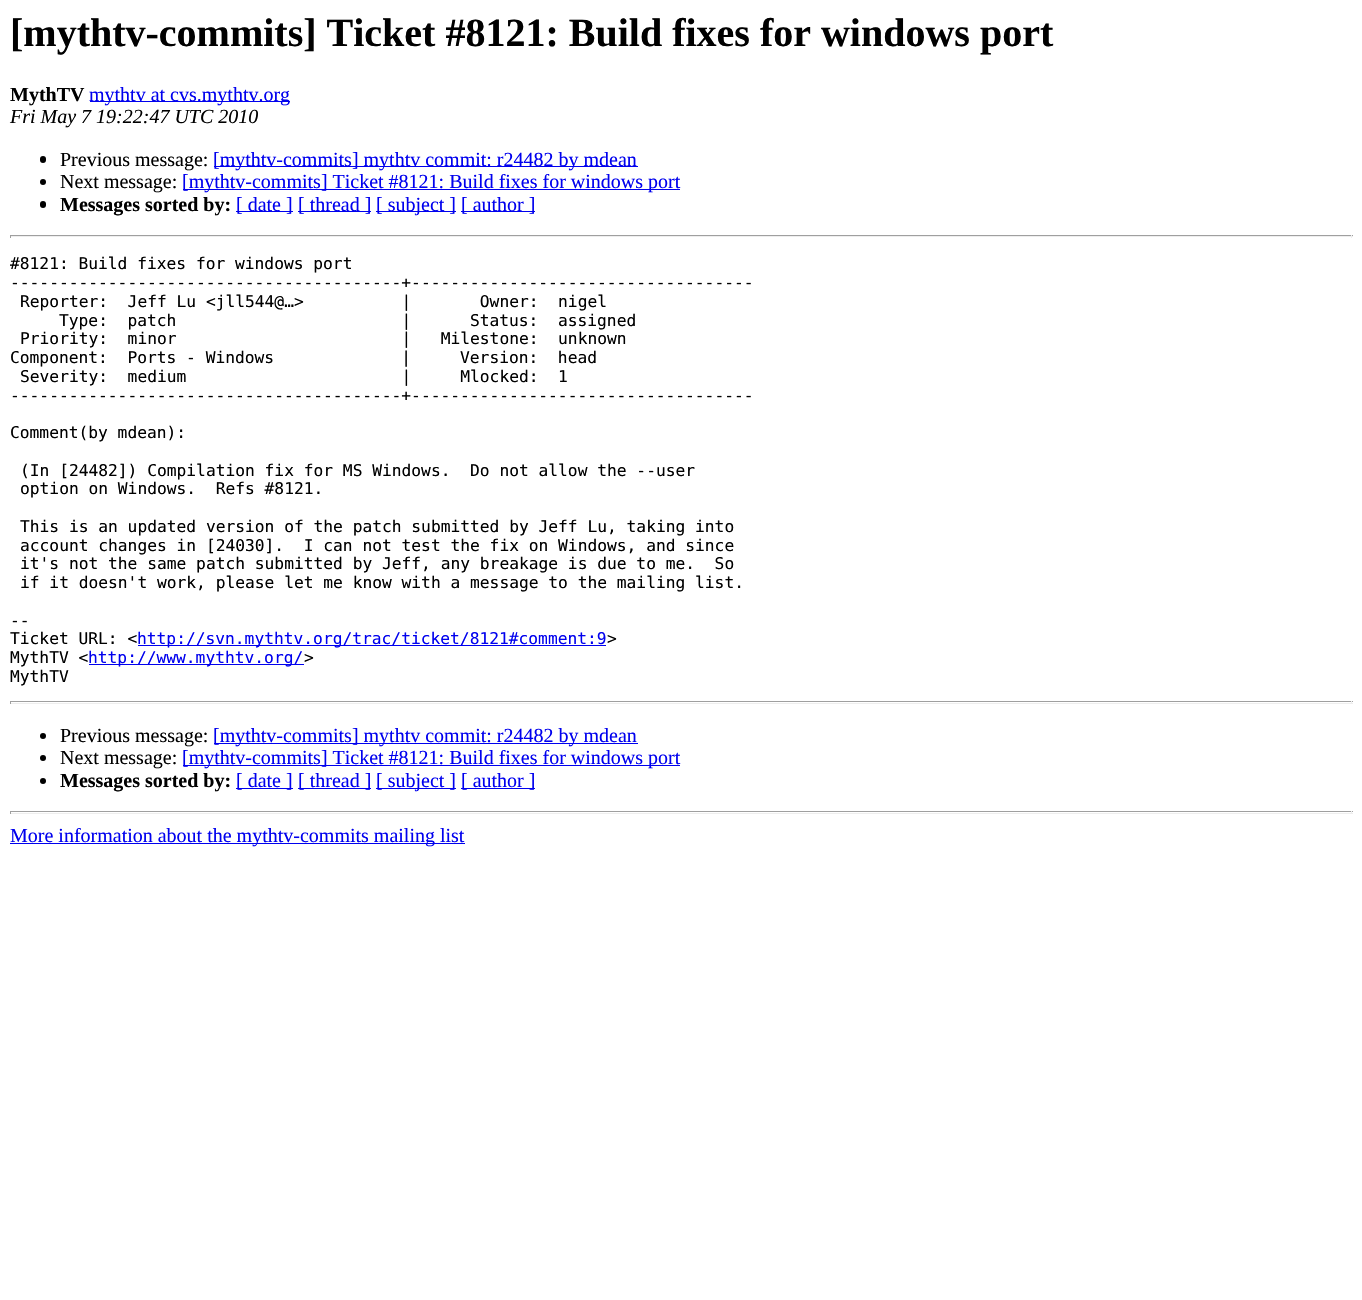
#include "include/core/SkBlurTypes.h"
#include "include/core/SkCanvas.h"
#include "include/core/SkData.h"
#include "include/core/SkFont.h"
#include "include/core/SkFontMgr.h"
#include "include/core/SkImage.h"
#include "include/core/SkMaskFilter.h"
#include "include/core/SkPaint.h"
#include "include/core/SkPathBuilder.h"
#include "include/core/SkTextBlob.h"
#include "include/effects/SkDashPathEffect.h"
#include "include/effects/SkGradientShader.h"
#include "include/utils/SkParsePath.h"

extern sk_sp<SkFontMgr> fontMgr;

void draw(SkCanvas* canvas) {
    SkPaint p;
    p.setAntiAlias(true);
    auto font = [&](const char* family, int weight, float size, bool italic = false) {
        SkFontStyle style(weight, SkFontStyle::kNormal_Width,
            italic ? SkFontStyle::kItalic_Slant : SkFontStyle::kUpright_Slant);
        SkFont result(fontMgr->matchFamilyStyle(family, style), size);
        result.setSubpixel(true);
        return result;
    };
    canvas->clear(0xFFFFFFFF);
    auto font1 = font("Liberation Serif", 700, 40);
    p.setColor(0xFF000000);
    canvas->drawString("[mythtv-commits] Ticket #8121: Build fixes for windows port", 10, 46, font1, p);
    auto font2 = font("Liberation Serif", 700, 20);
    canvas->drawString("MythTV", 10, 101, font2, p);
    p.setColor(0xFF0000EE);
    canvas->drawRect(SkRect::MakeLTRB(90, 101, 290, 102), p);
    auto font3 = font("Liberation Serif", 400, 20);
    canvas->drawString("mythtv at cvs.mythtv.org", 89, 101, font3, p);
    auto font4 = font("Liberation Serif", 400, 20, true);
    p.setColor(0xFF000000);
    canvas->drawString("Fri May 7 19:22:47 UTC 2010", 10, 123, font4, p);
    canvas->drawRoundRect(SkRect::MakeLTRB(40, 156, 46, 163), 3, 3, p);
    canvas->drawString("Previous message:", 60, 166, font3, p);
    p.setColor(0xFF0000EE);
    canvas->drawRect(SkRect::MakeLTRB(214, 166, 638, 167), p);
    canvas->drawString("[mythtv-commits] mythtv commit: r24482 by mdean", 213, 166, font3, p);
    p.setColor(0xFF000000);
    canvas->drawCircle(43, 182, 3, p);
    canvas->drawString("Next message:", 60, 188, font3, p);
    p.setColor(0xFF0000EE);
    canvas->drawRect(SkRect::MakeLTRB(183, 189, 680, 190), p);
    canvas->drawString("[mythtv-commits] Ticket #8121: Build fixes for windows port", 182, 188, font3, p);
    p.setColor(0xFF000000);
    canvas->drawRoundRect(SkRect::MakeLTRB(40, 201, 46, 208), 3, 3, p);
    canvas->drawString("Messages sorted by:", 60, 211, font2, p);
    p.setColor(0xFF0000EE);
    canvas->drawRect(SkRect::MakeLTRB(236, 211, 293, 212), p);
    canvas->drawString("[ date ]", 236, 211, font3, p);
    canvas->drawRect(SkRect::MakeLTRB(298, 211, 371, 212), p);
    canvas->drawString("[ thread ]", 298, 211, font3, p);
    canvas->drawRect(SkRect::MakeLTRB(376, 211, 456, 212), p);
    canvas->drawString("[ subject ]", 376, 211, font3, p);
    canvas->drawRect(SkRect::MakeLTRB(461, 211, 535, 212), p);
    canvas->drawString("[ author ]", 461, 211, font3, p);
    {
        const struct { float l, t, r, b; SkColor color; } items[] = {
            {10, 235, 1353, 236, 0xFF9F9F9F},
            {1351, 235, 1352, 238, 0xFFEEEEEE},
            {10, 236, 1353, 237, 0xFFEEEEEE},
            {10, 235, 11, 238, 0xFF9F9F9F},
        };
        for (auto [l, t, r, b, color] : items) {
            p.setColor(color);
            canvas->drawRect(SkRect::MakeLTRB(l, t, r, b), p);
        }
    }
    auto font5 = font("DejaVu Sans Mono", 400, 16.25f);
    p.setColor(0xFF000000);
    {
        const struct { const char* s; float x, y; } items[] = {
            {"#8121: Build fixes for windows port", 10, 269},
            {"----------------------------------------+-----------------------------------", 10, 288},
            {"Reporter:  Jeff Lu <jll544@…>          |       Owner:  nigel", 20, 307},
            {"Type:  patch                       |      Status:  assigned", 59, 326},
            {"Priority:  minor                       |   Milestone:  unknown", 20, 344},
            {"Component:  Ports - Windows             |     Version:  head", 10, 363},
            {"Severity:  medium                      |     Mlocked:  1", 20, 382},
            {"----------------------------------------+-----------------------------------", 10, 401},
            {"Comment(by mdean):", 10, 438},
            {"(In [24482]) Compilation fix for MS Windows.  Do not allow the --user", 20, 476},
            {"option on Windows.  Refs #8121.", 20, 494},
            {"This is an updated version of the patch submitted by Jeff Lu, taking into", 20, 532},
            {"account changes in [24030].  I can not test the fix on Windows, and since", 20, 551},
            {"it's not the same patch submitted by Jeff, any breakage is due to me.  So", 20, 569},
            {"if it doesn't work, please let me know with a message to the mailing list.", 20, 588},
            {"--", 10, 626},
            {"Ticket URL: <", 10, 644},
        };
        for (auto [s, x, y] : items) {
            canvas->drawString(s, x, y, font5, p);
        }
    }
    p.setColor(0xFF0000EE);
    canvas->drawRect(SkRect::MakeLTRB(138, 645, 606, 646), p);
    canvas->drawString("http://svn.mythtv.org/trac/ticket/8121#comment:9", 137, 644, font5, p);
    p.setColor(0xFF000000);
    canvas->drawString(">", 607, 644, font5, p);
    canvas->drawString("MythTV <", 10, 663, font5, p);
    p.setColor(0xFF0000EE);
    canvas->drawRect(SkRect::MakeLTRB(89, 664, 304, 665), p);
    canvas->drawString("http://www.mythtv.org/", 88, 663, font5, p);
    p.setColor(0xFF000000);
    canvas->drawString(">", 304, 663, font5, p);
    canvas->drawString("MythTV", 10, 682, font5, p);
    {
        const struct { float l, t, r, b; SkColor color; } items[] = {
            {10, 701, 1353, 702, 0xFF9F9F9F},
            {1351, 701, 1352, 704, 0xFFEEEEEE},
            {10, 703, 1353, 704, 0xFFEEEEEE},
            {10, 701, 11, 704, 0xFF9F9F9F},
        };
        for (auto [l, t, r, b, color] : items) {
            p.setColor(color);
            canvas->drawRect(SkRect::MakeLTRB(l, t, r, b), p);
        }
    }
    p.setColor(0xFF000000);
    canvas->drawCircle(43, 736, 3, p);
    canvas->drawString("Previous message:", 60, 742, font3, p);
    p.setColor(0xFF0000EE);
    canvas->drawRect(SkRect::MakeLTRB(214, 743, 638, 744), p);
    canvas->drawString("[mythtv-commits] mythtv commit: r24482 by mdean", 213, 742, font3, p);
    p.setColor(0xFF000000);
    canvas->drawCircle(43, 758, 3, p);
    canvas->drawString("Next message:", 60, 764, font3, p);
    p.setColor(0xFF0000EE);
    canvas->drawRect(SkRect::MakeLTRB(183, 765, 680, 766), p);
    canvas->drawString("[mythtv-commits] Ticket #8121: Build fixes for windows port", 182, 764, font3, p);
    p.setColor(0xFF000000);
    canvas->drawCircle(43, 781, 3, p);
    canvas->drawString("Messages sorted by:", 60, 787, font2, p);
    p.setColor(0xFF0000EE);
    canvas->drawRect(SkRect::MakeLTRB(236, 788, 293, 789), p);
    canvas->drawString("[ date ]", 236, 787, font3, p);
    canvas->drawRect(SkRect::MakeLTRB(298, 788, 371, 789), p);
    canvas->drawString("[ thread ]", 298, 787, font3, p);
    canvas->drawRect(SkRect::MakeLTRB(376, 788, 456, 789), p);
    canvas->drawString("[ subject ]", 376, 787, font3, p);
    canvas->drawRect(SkRect::MakeLTRB(461, 788, 535, 789), p);
    canvas->drawString("[ author ]", 461, 787, font3, p);
    {
        const struct { float l, t, r, b; SkColor color; } items[] = {
            {10, 811, 1353, 812, 0xFF9F9F9F},
            {1351, 811, 1352, 814, 0xFFEEEEEE},
            {10, 813, 1353, 814, 0xFFEEEEEE},
            {10, 811, 11, 814, 0xFF9F9F9F},
            {10, 843, 465, 844, 0xFF0000EE},
        };
        for (auto [l, t, r, b, color] : items) {
            p.setColor(color);
            canvas->drawRect(SkRect::MakeLTRB(l, t, r, b), p);
        }
    }
    canvas->drawString("More information about the mythtv-commits mailing list", 10, 842, font3, p);
}
